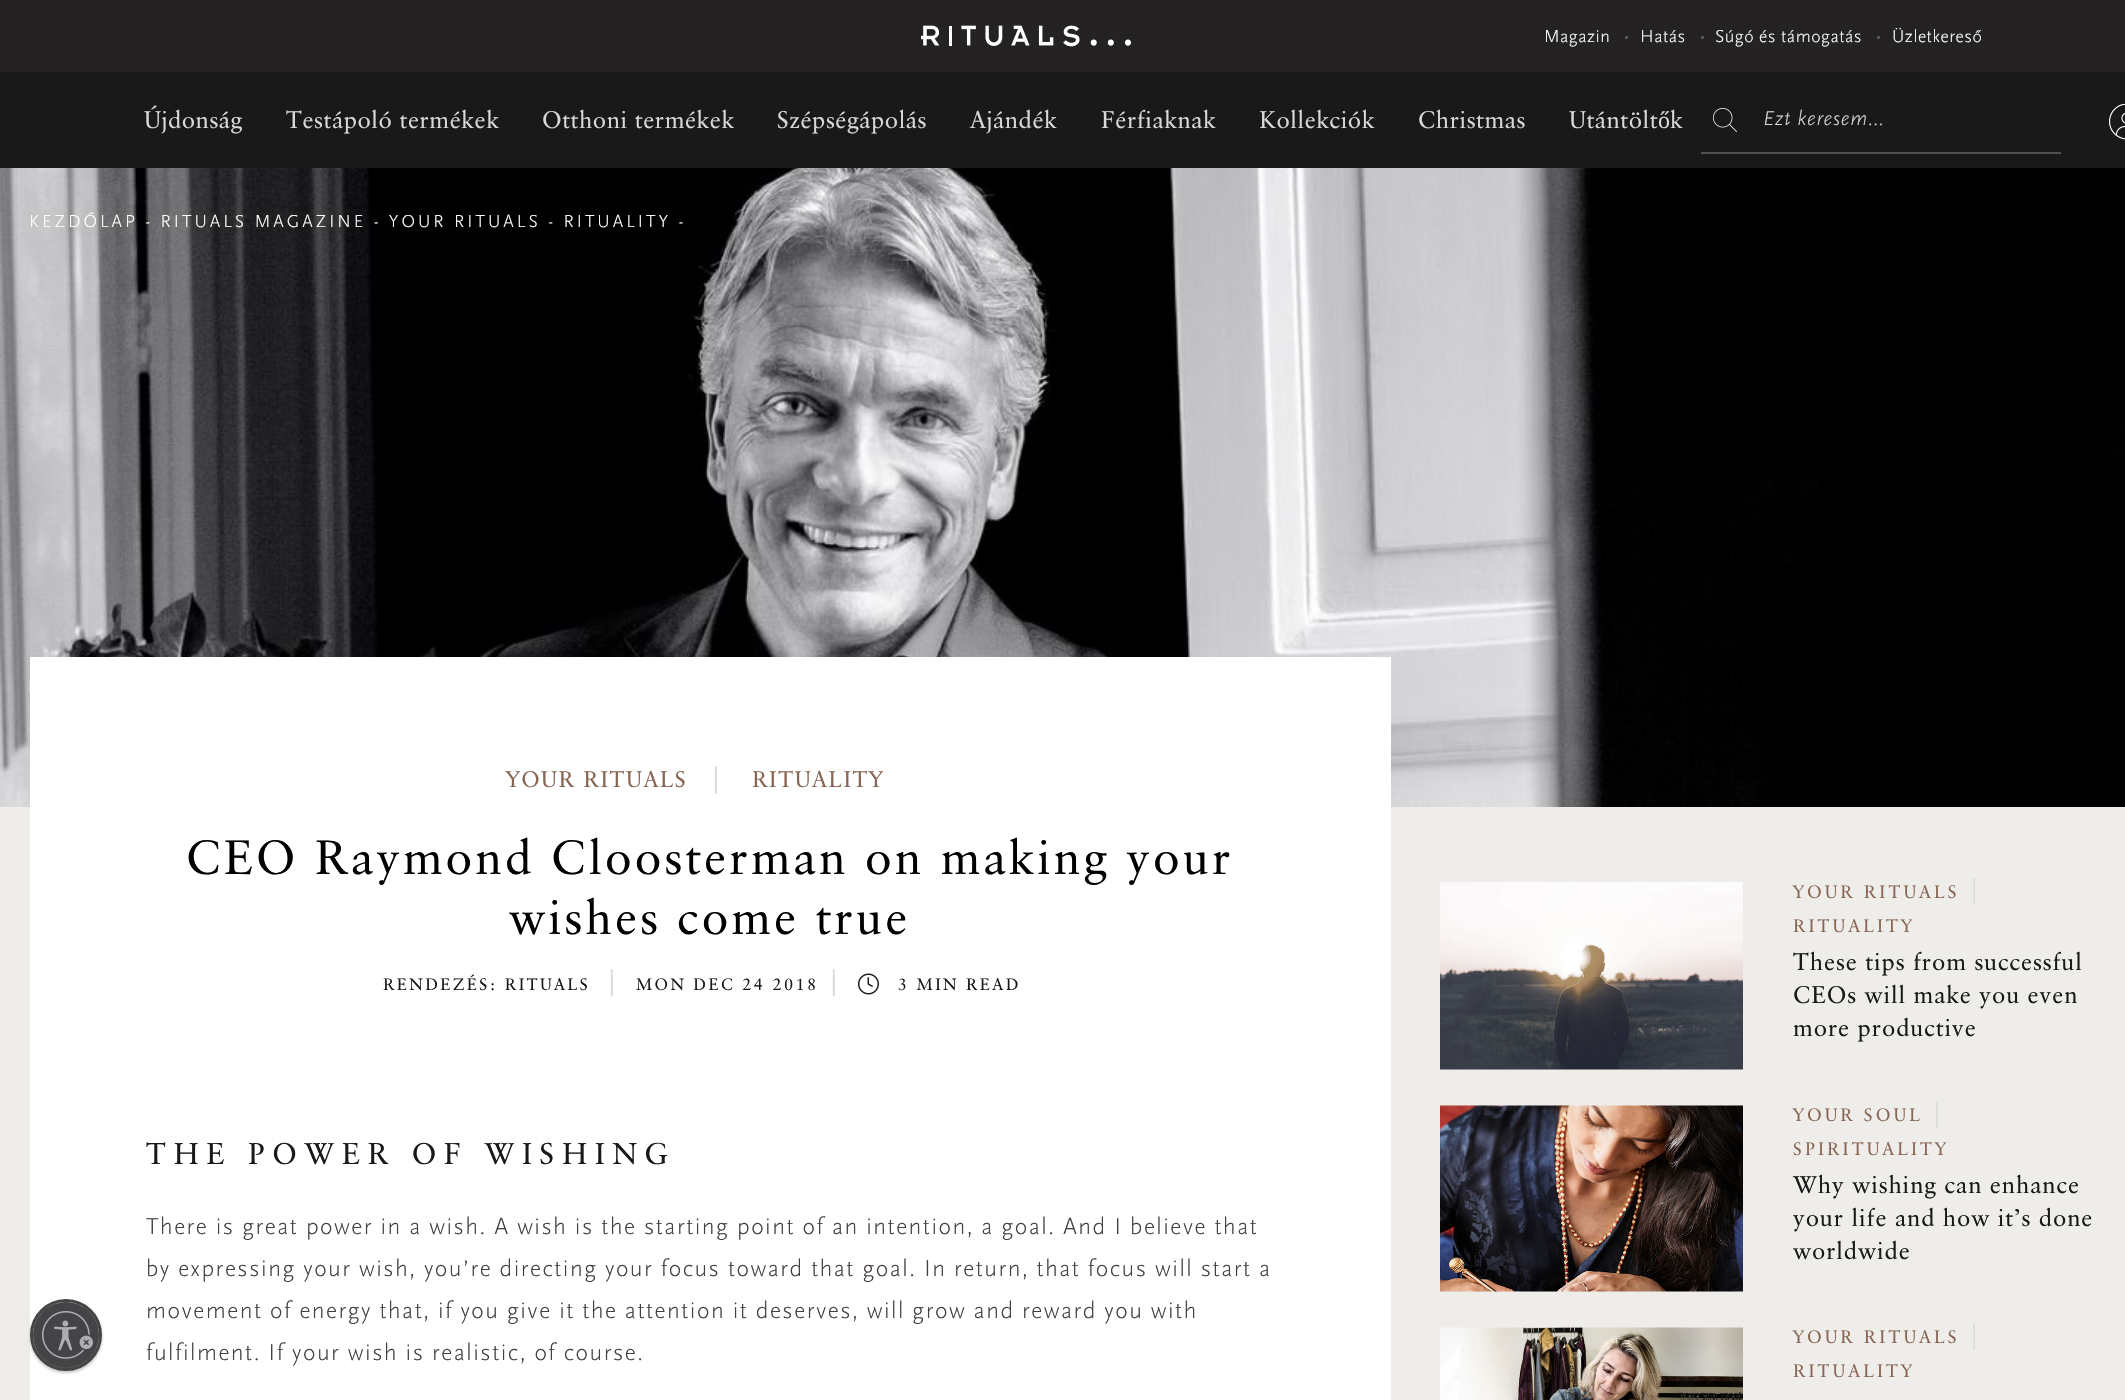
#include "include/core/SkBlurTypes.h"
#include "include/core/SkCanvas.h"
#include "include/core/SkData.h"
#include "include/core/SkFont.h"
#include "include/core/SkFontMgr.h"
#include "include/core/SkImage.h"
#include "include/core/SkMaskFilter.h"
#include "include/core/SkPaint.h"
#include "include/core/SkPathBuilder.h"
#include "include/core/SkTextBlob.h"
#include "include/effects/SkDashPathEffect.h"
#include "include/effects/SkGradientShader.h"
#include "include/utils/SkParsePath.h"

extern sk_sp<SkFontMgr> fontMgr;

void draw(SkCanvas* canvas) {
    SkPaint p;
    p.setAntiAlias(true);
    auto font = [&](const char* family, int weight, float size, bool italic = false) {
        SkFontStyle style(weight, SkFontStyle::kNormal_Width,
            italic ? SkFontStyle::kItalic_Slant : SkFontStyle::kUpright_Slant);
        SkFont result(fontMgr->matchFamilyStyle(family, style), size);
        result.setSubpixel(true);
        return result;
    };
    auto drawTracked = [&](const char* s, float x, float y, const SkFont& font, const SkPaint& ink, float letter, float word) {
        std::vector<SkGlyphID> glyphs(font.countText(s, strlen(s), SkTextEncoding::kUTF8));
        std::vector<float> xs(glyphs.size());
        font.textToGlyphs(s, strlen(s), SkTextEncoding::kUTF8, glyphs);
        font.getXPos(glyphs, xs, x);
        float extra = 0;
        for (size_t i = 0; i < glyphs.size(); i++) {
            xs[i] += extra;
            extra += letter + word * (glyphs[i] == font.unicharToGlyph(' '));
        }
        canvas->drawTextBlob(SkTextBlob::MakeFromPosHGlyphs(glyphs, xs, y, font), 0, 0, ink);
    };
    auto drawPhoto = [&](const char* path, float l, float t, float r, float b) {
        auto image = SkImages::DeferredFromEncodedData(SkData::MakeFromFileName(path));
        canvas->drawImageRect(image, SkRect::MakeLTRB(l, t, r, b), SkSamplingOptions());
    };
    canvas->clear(0xFFEFEDEA);
    p.setColor(0xFF1A1919);
    canvas->drawRect(SkRect::MakeLTRB(0, 72, 2125, 168), p);
    p.setColor(0xFF242222);
    canvas->drawRect(SkRect::MakeLTRB(0, 0, 2125, 72), p);
    drawPhoto("media/1.png", 921, 25, 1131, 47);
    auto font1 = font("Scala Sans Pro", 300, 18);
    p.setColor(0xFFFFFFFF);
    drawTracked("Magazin", 1544, 42, font1, p, 0.5f, 0);
    p.setColor(0xFF626262);
    canvas->drawCircle(1626.5f, 37.5f, 1.5f, p);
    p.setColor(0xFFFFFFFF);
    drawTracked("Hatás", 1640, 42, font1, p, 0.5f, 0);
    p.setColor(0xFF626262);
    canvas->drawCircle(1702.5f, 37.5f, 1.5f, p);
    p.setColor(0xFFFFFFFF);
    drawTracked("Súgó és támogatás", 1715, 42, font1, p, 0.5f, 0);
    p.setColor(0xFF626262);
    canvas->drawCircle(1878.5f, 37.5f, 1.5f, p);
    p.setColor(0xFFFFFFFF);
    drawTracked("Üzletkereső", 1892, 42, font1, p, 0.5f, 0);
    auto font2 = font("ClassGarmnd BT", 400, 24);
    p.setColor(0xFFD8D8D8);
    {
        const struct { const char* s; float x, y; } items[] = {
            {"Újdonság", 144, 128},
            {"Testápoló termékek", 286, 128},
            {"Otthoni termékek", 542, 128},
            {"Szépségápolás", 777, 128},
            {"Ajándék", 970, 128},
            {"Férfiaknak", 1101, 128},
            {"Kollekciók", 1259, 128},
            {"Christmas", 1418, 128},
            {"Utántölt", 1569, 128},
        };
        for (auto [s, x, y] : items) {
            drawTracked(s, x, y, font2, p, 0.5f, 0);
        }
    }
    auto font3 = font("Liberation Serif", 400, 24);
    drawTracked("ő", 1658, 128, font3, p, 0.5f, 0);
    drawTracked("k", 1670, 128, font2, p, 0.5f, 0);
    p.setColor(0xFF515050);
    canvas->drawRect(SkRect::MakeLTRB(1701, 152, 2061, 154), p);
    drawPhoto("media/2.png", 1713, 108, 1737, 132);
    auto font4 = font("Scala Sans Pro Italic", 300, 21);
    p.setColor(0xFFD8D8D8);
    drawTracked("Ezt keresem…", 1763, 125, font4, p, 0.6f, 0);
    drawPhoto("media/3.png", 2109, 104, 2125, 140);
    drawPhoto("media/4.png", 0, 168, 2125, 807);
    p.setColor(0xFFFFFFFF);
    drawTracked("KEZDŐLAP - RITUALS MAGAZINE - YOUR RITUALS - RITUALITY -", 29, 227, font1, p, 3, 0);
    canvas->drawRect(SkRect::MakeLTRB(30, 657, 1391, 1400), p);
    auto font5 = font("ClassGarmnd BT", 400, 22.5f);
    p.setColor(0xFF886655);
    drawTracked("YOUR RITUALS", 506, 787, font5, p, 1.5f, 0);
    auto font6 = font("ClassGarmnd BT", 400, 27);
    p.setColor(0xFFD8D8D8);
    drawTracked("|", 709, 787, font6, p, 7.5f, 0);
    p.setColor(0xFF886655);
    drawTracked("RITUALITY", 752, 787, font5, p, 1.5f, 0);
    auto font7 = font("ClassGarmnd BT", 400, 48);
    p.setColor(0xFF000000);
    drawTracked("CEO Raymond Cloosterman on making your", 186, 874, font7, p, 3, 0);
    drawTracked("wishes come true", 509, 934, font7, p, 3, 0);
    auto font8 = font("ClassGarmnd BT", 400, 16.5f);
    p.setColor(0xFF1A1919);
    drawTracked("RENDEZÉS: RITUALS", 383, 990, font8, p, 2.4f, 0);
    p.setColor(0xFFD8D8D8);
    drawTracked("|", 605, 990, font6, p, 2.4f, 0);
    p.setColor(0xFF1A1919);
    drawTracked("MON DEC 24 2018", 636, 990, font8, p, 2.4f, 0);
    p.setColor(0xFFD8D8D8);
    drawTracked("|", 827, 990, font6, p, 2.4f, 0);
    drawPhoto("media/5.png", 858, 973, 879, 995);
    p.setColor(0xFF1A1919);
    drawTracked("3 MIN READ", 898, 990, font8, p, 2.4f, 0);
    auto font9 = font("ClassGarmnd BT", 400, 30);
    drawTracked("THE POWER OF WISHING", 146, 1164, font9, p, 7.5f, 0);
    auto font10 = font("Scala Sans Pro", 300, 24);
    p.setColor(0xFF453F3F);
    {
        const struct { const char* s; float x, y; } items[] = {
            {"There is great power in a wish. A wish is the starting point of an intention, a goal. And I believe that", 146, 1234},
            {"by expressing your wish, you’re directing your focus toward that goal. In return, that focus will start a", 146, 1276},
            {"movement of energy that, if you give it the attention it deserves, will grow and reward you with", 146, 1318},
            {"fulfilment. If your wish is realistic, of course.", 146, 1360},
        };
        for (auto [s, x, y] : items) {
            drawTracked(s, x, y, font10, p, 1.5f, 0);
        }
    }
    drawPhoto("media/6.png", 1440, 882, 1743, 1070);
    auto font11 = font("ClassGarmnd BT", 400, 18);
    p.setColor(0xFF886655);
    drawTracked("YOUR RITUALS", 1793, 898, font11, p, 3, 0);
    auto font12 = font("Scala Sans Pro", 300, 27);
    p.setColor(0xFFD8D8D8);
    drawTracked("|", 1971, 898, font12, p, 4, 0);
    p.setColor(0xFF886655);
    drawTracked("RITUALITY", 1793, 932, font11, p, 3, 0);
    p.setColor(0xFF1A1919);
    {
        const struct { const char* s; float x, y; } items[] = {
            {"These tips from successful", 1793, 970},
            {"CEOs will make you even", 1793, 1003},
            {"more productive", 1793, 1036},
        };
        for (auto [s, x, y] : items) {
            drawTracked(s, x, y, font2, p, 0.85f, 0);
        }
    }
    drawPhoto("media/7.png", 1440, 1105, 1743, 1292);
    p.setColor(0xFF886655);
    drawTracked("YOUR SOUL", 1793, 1121, font11, p, 3, 0);
    p.setColor(0xFFD8D8D8);
    drawTracked("|", 1934, 1121, font12, p, 4, 0);
    p.setColor(0xFF886655);
    drawTracked("SPIRITUALITY", 1793, 1155, font11, p, 3, 0);
    p.setColor(0xFF1A1919);
    {
        const struct { const char* s; float x, y; } items[] = {
            {"Why wishing can enhance", 1793, 1193},
            {"your life and how it’s done", 1793, 1226},
            {"worldwide", 1793, 1259},
        };
        for (auto [s, x, y] : items) {
            drawTracked(s, x, y, font2, p, 0.85f, 0);
        }
    }
    drawPhoto("media/8.png", 1440, 1327, 1743, 1400);
    p.setColor(0xFF886655);
    drawTracked("YOUR RITUALS", 1793, 1343, font11, p, 3, 0);
    p.setColor(0xFFD8D8D8);
    drawTracked("|", 1971, 1343, font12, p, 4, 0);
    p.setColor(0xFF886655);
    drawTracked("RITUALITY", 1793, 1377, font11, p, 3, 0);
    p.setColor(0x3D000000);
    p.setMaskFilter(SkMaskFilter::MakeBlur(kNormal_SkBlurStyle, 1.5f));
    canvas->drawRoundRect(SkRect::MakeLTRB(30, 1301, 102, 1373), 36, 36, p);
    p.setMaskFilter(nullptr);
    p.setStyle(SkPaint::kStroke_Style);
    p.setStrokeWidth(3);
    p.setColor(0xFF444446);
    canvas->drawCircle(66, 1335, 34.5f, p);
    canvas->save();
    canvas->clipPath(SkPathBuilder().moveTo(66, 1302).cubicTo(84, 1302, 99, 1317, 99, 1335).cubicTo(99, 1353, 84, 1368, 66, 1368).cubicTo(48, 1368, 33, 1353, 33, 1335).cubicTo(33, 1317, 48, 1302, 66, 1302).close().detach(), true);
    p.setStyle(SkPaint::kFill_Style);
    p.setColor(0x3D000000);
    p.setMaskFilter(SkMaskFilter::MakeBlur(kNormal_SkBlurStyle, 1.5f));
    canvas->drawRoundRect(SkRect::MakeLTRB(33, 1304, 99, 1370), 33, 33, p);
    p.setMaskFilter(nullptr);
    canvas->restore();
    p.setColor(0xFF444446);
    canvas->drawCircle(66, 1335, 33, p);
    drawPhoto("media/9.png", 42, 1311, 93, 1359);
}
